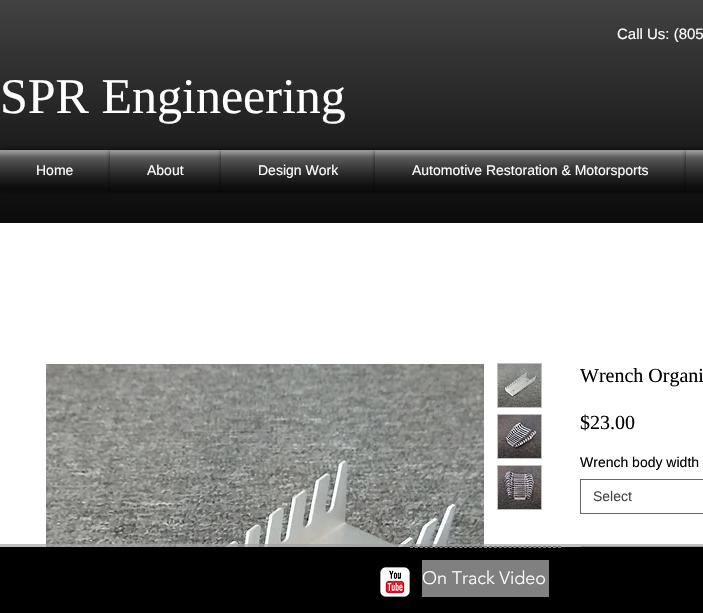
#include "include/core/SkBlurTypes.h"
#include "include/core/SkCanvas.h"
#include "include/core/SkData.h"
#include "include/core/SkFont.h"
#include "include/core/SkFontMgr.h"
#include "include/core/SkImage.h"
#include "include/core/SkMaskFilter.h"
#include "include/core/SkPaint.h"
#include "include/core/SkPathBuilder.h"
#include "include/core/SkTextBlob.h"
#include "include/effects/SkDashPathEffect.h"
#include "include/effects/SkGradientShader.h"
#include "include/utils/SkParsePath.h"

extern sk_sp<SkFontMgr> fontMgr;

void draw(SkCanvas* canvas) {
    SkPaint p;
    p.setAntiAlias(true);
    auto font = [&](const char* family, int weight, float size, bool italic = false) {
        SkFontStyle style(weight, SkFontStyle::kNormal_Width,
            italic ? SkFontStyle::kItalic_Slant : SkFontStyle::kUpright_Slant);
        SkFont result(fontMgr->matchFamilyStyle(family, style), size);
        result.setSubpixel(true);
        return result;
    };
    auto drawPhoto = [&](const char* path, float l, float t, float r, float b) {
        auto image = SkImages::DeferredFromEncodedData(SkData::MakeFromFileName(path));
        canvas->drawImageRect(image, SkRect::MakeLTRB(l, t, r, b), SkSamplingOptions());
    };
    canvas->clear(0xFFFFFFFF);
    p.setColor(0xFF000000);
    canvas->drawRect(SkRect::MakeLTRB(0, 0, 703, 223), p);
    drawPhoto("media/1.png", 0, 0, 703, 223);
    auto font1 = font("Liberation Sans", 400, 15);
    p.setColor(0xFFFFFFFF);
    canvas->drawString("Call Us: (805", 617, 39, font1, p);
    auto font2 = font("Liberation Serif", 400, 50);
    canvas->drawString("SPR Engineering", 0, 113, font2, p);
    p.setColor(0x99000000);
    p.setMaskFilter(SkMaskFilter::MakeBlur(kNormal_SkBlurStyle, 2.5f));
    canvas->drawRect(SkRect::MakeLTRB(0, 150, 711, 191), p);
    p.setMaskFilter(nullptr);
    p.setColor(0xFF000000);
    canvas->drawRect(SkRect::MakeLTRB(0, 150, 110, 191), p);
    drawPhoto("media/2.png", 0, 150, 110, 191);
    auto font3 = font("Liberation Sans", 400, 14);
    p.setColor(0xFFFFFFFF);
    canvas->drawString("Home", 36, 175, font3, p);
    p.setColor(0x99000000);
    p.setMaskFilter(SkMaskFilter::MakeBlur(kNormal_SkBlurStyle, 2));
    canvas->drawRect(SkRect::MakeLTRB(110, 151, 221, 192), p);
    p.setMaskFilter(nullptr);
    p.setColor(0xFF000000);
    canvas->drawRect(SkRect::MakeLTRB(110, 150, 221, 191), p);
    drawPhoto("media/3.png", 110, 150, 221, 191);
    p.setColor(0xFFFFFFFF);
    canvas->drawString("About", 147, 175, font3, p);
    p.setColor(0x99000000);
    p.setMaskFilter(SkMaskFilter::MakeBlur(kNormal_SkBlurStyle, 2));
    canvas->drawRect(SkRect::MakeLTRB(221, 151, 375, 192), p);
    p.setMaskFilter(nullptr);
    p.setColor(0xFF000000);
    canvas->drawRect(SkRect::MakeLTRB(221, 150, 375, 191), p);
    drawPhoto("media/4.png", 221, 150, 375, 191);
    p.setColor(0xFFFFFFFF);
    canvas->drawString("Design Work", 258, 175, font3, p);
    p.setColor(0x99000000);
    p.setMaskFilter(SkMaskFilter::MakeBlur(kNormal_SkBlurStyle, 2));
    canvas->drawRect(SkRect::MakeLTRB(375, 151, 686, 192), p);
    p.setMaskFilter(nullptr);
    p.setColor(0xFF000000);
    canvas->drawRect(SkRect::MakeLTRB(375, 150, 686, 191), p);
    drawPhoto("media/5.png", 375, 150, 686, 191);
    p.setColor(0xFFFFFFFF);
    canvas->drawString("Automotive Restoration & Motorsports", 412, 175, font3, p);
    p.setColor(0x99000000);
    p.setMaskFilter(SkMaskFilter::MakeBlur(kNormal_SkBlurStyle, 2));
    canvas->drawRect(SkRect::MakeLTRB(686, 151, 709, 192), p);
    p.setMaskFilter(nullptr);
    p.setColor(0xFF000000);
    canvas->drawRect(SkRect::MakeLTRB(686, 150, 703, 191), p);
    drawPhoto("media/6.png", 686, 150, 703, 191);
    drawPhoto("media/7.png", 46, 364, 484, 547);
    p.setColor(0xFFBFBFBF);
    canvas->drawRect(SkRect::MakeLTRB(497, 363, 542, 408), p);
    drawPhoto("media/8.png", 498, 364, 541, 407);
    canvas->drawRect(SkRect::MakeLTRB(497, 414, 542, 459), p);
    drawPhoto("media/9.png", 498, 415, 541, 458);
    canvas->drawRect(SkRect::MakeLTRB(497, 465, 542, 510), p);
    drawPhoto("media/10.png", 498, 466, 541, 509);
    auto font4 = font("Liberation Serif", 400, 20);
    p.setColor(0xFF000000);
    canvas->drawString("Wrench Organi", 580, 382, font4, p);
    canvas->drawString("$23.00", 580, 429, font4, p);
    canvas->drawString("Wrench body width", 580, 467, font3, p);
    p.setStyle(SkPaint::kStroke_Style);
    p.setStrokeWidth(1);
    p.setColor(0xFF666666);
    canvas->drawRect(SkRect::MakeLTRB(580.5f, 479.5f, 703.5f, 513.5f), p);
    p.setStyle(SkPaint::kFill_Style);
    p.setColor(0xFF444444);
    canvas->drawString("Select", 593, 501, font3, p);
    p.setColor(0xFF808080);
    canvas->drawRoundRect(SkRect::MakeLTRB(580, 546, 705, 586), 2, 2, p);
    p.setColor(0xA8A0A0A0);
    canvas->drawRect(SkRect::MakeLTRB(0, 544, 703, 547), p);
    p.setColor(0xFF000000);
    canvas->drawRect(SkRect::MakeLTRB(0, 547, 703, 613), p);
    p.setStyle(SkPaint::kStroke_Style);
    p.setColor(0x59000000);
    p.setPathEffect(SkDashPathEffect::Make({{3, 1.93f}}, 0));
    canvas->drawPath(SkPathBuilder().moveTo(410, 546.5f).lineTo(561, 546.5f).detach(), p);
    p.setPathEffect(nullptr);
    p.setColor(0xFF808080);
    p.setPathEffect(SkDashPathEffect::Make({{3, 1.93f}}, 0));
    canvas->drawPath(SkPathBuilder().moveTo(410, 547.5f).lineTo(561, 547.5f).detach(), p);
    p.setPathEffect(nullptr);
    drawPhoto("media/11.png", 380, 567, 410, 597);
    p.setStyle(SkPaint::kFill_Style);
    canvas->drawRect(SkRect::MakeLTRB(422, 560, 549, 597), p);
    auto font5 = font("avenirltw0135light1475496", 300, 18);
    p.setColor(0xFFFFFFFF);
    canvas->drawString("On Track Video", 422, 584, font5, p);
}
